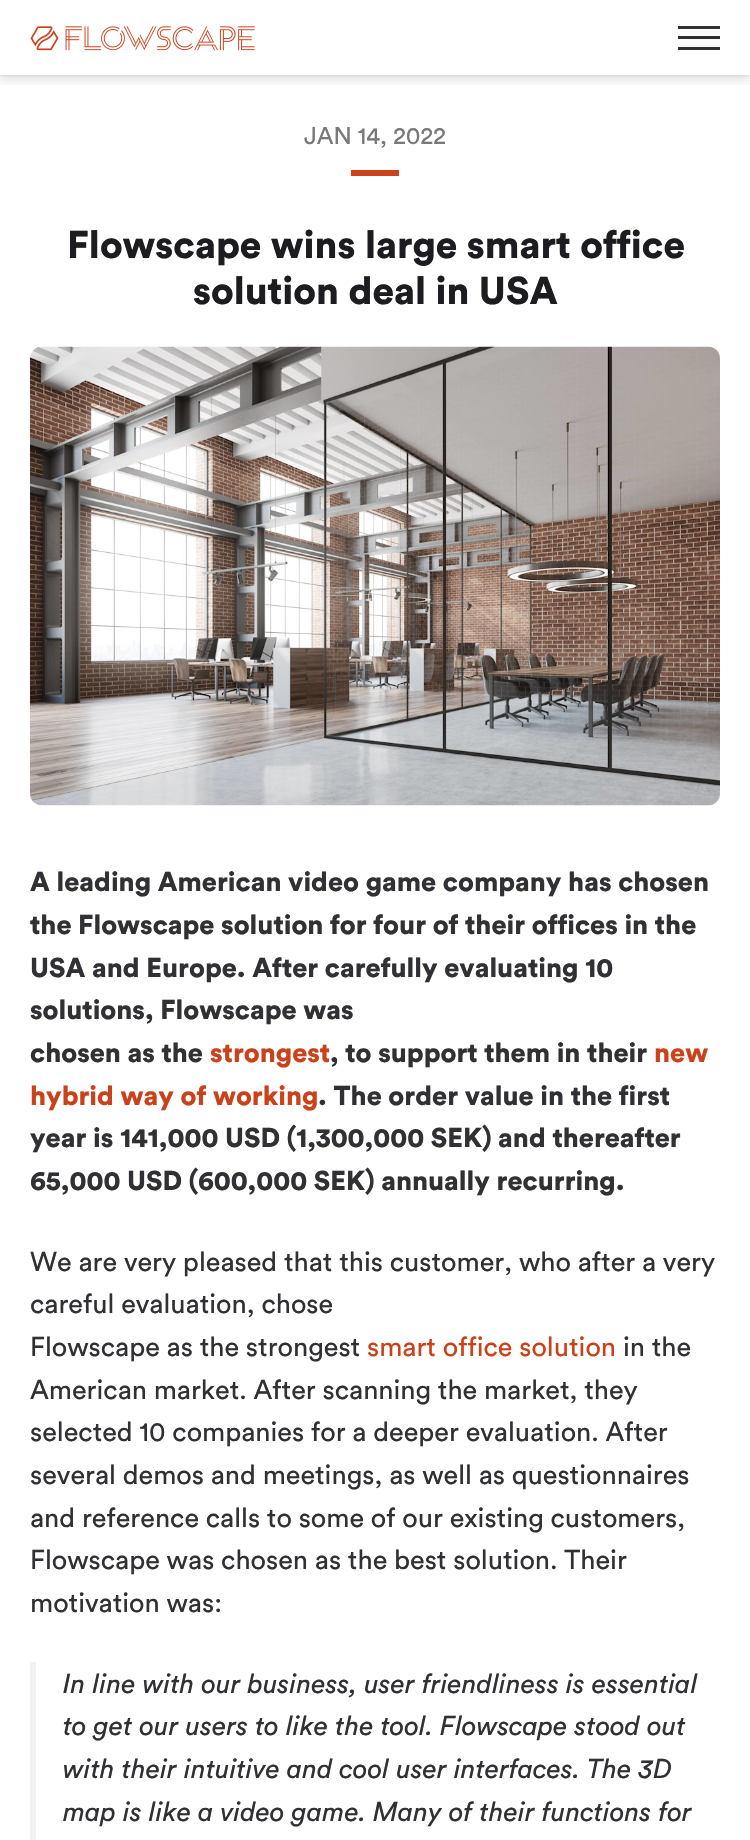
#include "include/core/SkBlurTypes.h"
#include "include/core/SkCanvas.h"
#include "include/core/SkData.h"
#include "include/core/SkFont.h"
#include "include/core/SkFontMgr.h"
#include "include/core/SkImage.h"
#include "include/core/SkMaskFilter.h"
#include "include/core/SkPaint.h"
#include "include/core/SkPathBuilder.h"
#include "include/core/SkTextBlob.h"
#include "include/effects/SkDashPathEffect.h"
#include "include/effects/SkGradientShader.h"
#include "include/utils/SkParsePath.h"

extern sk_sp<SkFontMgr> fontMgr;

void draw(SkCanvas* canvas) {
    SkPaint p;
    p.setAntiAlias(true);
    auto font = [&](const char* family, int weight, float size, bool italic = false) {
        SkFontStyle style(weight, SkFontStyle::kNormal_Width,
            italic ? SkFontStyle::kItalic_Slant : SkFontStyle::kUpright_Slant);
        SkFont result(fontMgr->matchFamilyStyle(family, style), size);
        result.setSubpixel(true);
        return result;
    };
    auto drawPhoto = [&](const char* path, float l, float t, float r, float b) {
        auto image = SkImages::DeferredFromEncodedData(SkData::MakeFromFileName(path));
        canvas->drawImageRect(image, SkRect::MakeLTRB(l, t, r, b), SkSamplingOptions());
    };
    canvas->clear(0xFFFFFFFF);
    canvas->save();
    canvas->clipRect(SkRect::MakeLTRB(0, 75, 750, 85));
    p.setColor(0x1A000000);
    p.setMaskFilter(SkMaskFilter::MakeBlur(kNormal_SkBlurStyle, 4.5f));
    canvas->drawRect(SkRect::MakeLTRB(0, 6, 750, 81), p);
    p.setMaskFilter(nullptr);
    canvas->restore();
    canvas->save();
    canvas->clipRect(SkRect::MakeLTRB(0, 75, 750, 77));
    p.setColor(0x0D000000);
    p.setMaskFilter(SkMaskFilter::MakeBlur(kNormal_SkBlurStyle, 1));
    canvas->drawRect(SkRect::MakeLTRB(0, 2, 750, 77), p);
    p.setMaskFilter(nullptr);
    canvas->restore();
    drawPhoto("media/1.png", 30, 26, 255, 51);
    {
        const struct { float l, t, r, b; SkColor color; } items[] = {
            {678, 36, 720, 39, 0xFF313135},
            {678, 26, 720, 29, 0xFF313135},
            {678, 47, 720, 50, 0xFF313135},
        };
        for (auto [l, t, r, b, color] : items) {
            p.setColor(color);
            canvas->drawRect(SkRect::MakeLTRB(l, t, r, b), p);
        }
    }
    auto font1 = font("Circular", 400, 24);
    p.setColor(0xFF79797C);
    canvas->drawString("JAN 14, 2022", 304, 144, font1, p);
    p.setColor(0xFFCB411A);
    canvas->drawRect(SkRect::MakeLTRB(351, 170, 399, 176), p);
    auto font2 = font("Circular", 900, 38.5f);
    p.setColor(0xFF1C1C21);
    canvas->drawString("Flowscape wins large smart office", 67, 258, font2, p);
    canvas->drawString("solution deal in USA", 193, 304, font2, p);
    drawPhoto("media/2.png", 30, 346, 720, 806);
    auto font3 = font("Circular", 900, 27);
    p.setColor(0xFF313135);
    {
        const struct { const char* s; float x, y; } items[] = {
            {"A leading American video game company has chosen", 30, 891},
            {"the Flowscape solution for four of their offices in the", 30, 934},
            {"USA and Europe. After carefully evaluating 10", 30, 977},
            {"solutions, Flowscape was", 30, 1019},
            {"chosen as the", 30, 1062},
        };
        for (auto [s, x, y] : items) {
            canvas->drawString(s, x, y, font3, p);
        }
    }
    p.setColor(0xFFCB411A);
    canvas->drawString("strongest", 210, 1062, font3, p);
    p.setColor(0xFF313135);
    canvas->drawString(", to support them in their", 330, 1062, font3, p);
    p.setColor(0xFFCB411A);
    canvas->drawString("new", 654, 1062, font3, p);
    canvas->drawString("hybrid way of working", 30, 1105, font3, p);
    p.setColor(0xFF313135);
    {
        const struct { const char* s; float x, y; } items[] = {
            {". The order value in the first", 318, 1105},
            {"year is 141,000 USD (1,300,000 SEK) and thereafter", 30, 1147},
            {"65,000 USD (600,000 SEK) annually recurring.", 30, 1190},
        };
        for (auto [s, x, y] : items) {
            canvas->drawString(s, x, y, font3, p);
        }
    }
    auto font4 = font("Circular", 400, 27);
    {
        const struct { const char* s; float x, y; } items[] = {
            {"We are very pleased that this customer, who after a very", 30, 1271},
            {"careful evaluation, chose", 30, 1313},
            {"Flowscape as the strongest", 30, 1356},
        };
        for (auto [s, x, y] : items) {
            canvas->drawString(s, x, y, font4, p);
        }
    }
    p.setColor(0xFFCB411A);
    canvas->drawString("smart office solution", 367, 1356, font4, p);
    p.setColor(0xFF313135);
    {
        const struct { const char* s; float x, y; } items[] = {
            {"in the", 623, 1356},
            {"American market. After scanning the market, they", 30, 1399},
            {"selected 10 companies for a deeper evaluation. After", 30, 1441},
            {"several demos and meetings, as well as questionnaires", 30, 1484},
            {"and reference calls to some of our existing customers,", 30, 1527},
            {"Flowscape was chosen as the best solution. Their", 30, 1569},
            {"motivation was:", 30, 1612},
        };
        for (auto [s, x, y] : items) {
            canvas->drawString(s, x, y, font4, p);
        }
    }
    p.setColor(0xFFF2F2F2);
    canvas->drawRect(SkRect::MakeLTRB(30, 1662, 36, 1840), p);
    auto font5 = font("Circular", 400, 27, true);
    p.setColor(0xFF313135);
    {
        const struct { const char* s; float x, y; } items[] = {
            {"In line with our business, user friendliness is essential", 63, 1693},
            {"to get our users to like the tool. Flowscape stood out", 63, 1735},
            {"with their intuitive and cool user interfaces. The 3D", 63, 1778},
            {"map is like a video game. Many of their functions for", 63, 1821},
        };
        for (auto [s, x, y] : items) {
            canvas->drawString(s, x, y, font5, p);
        }
    }
}
